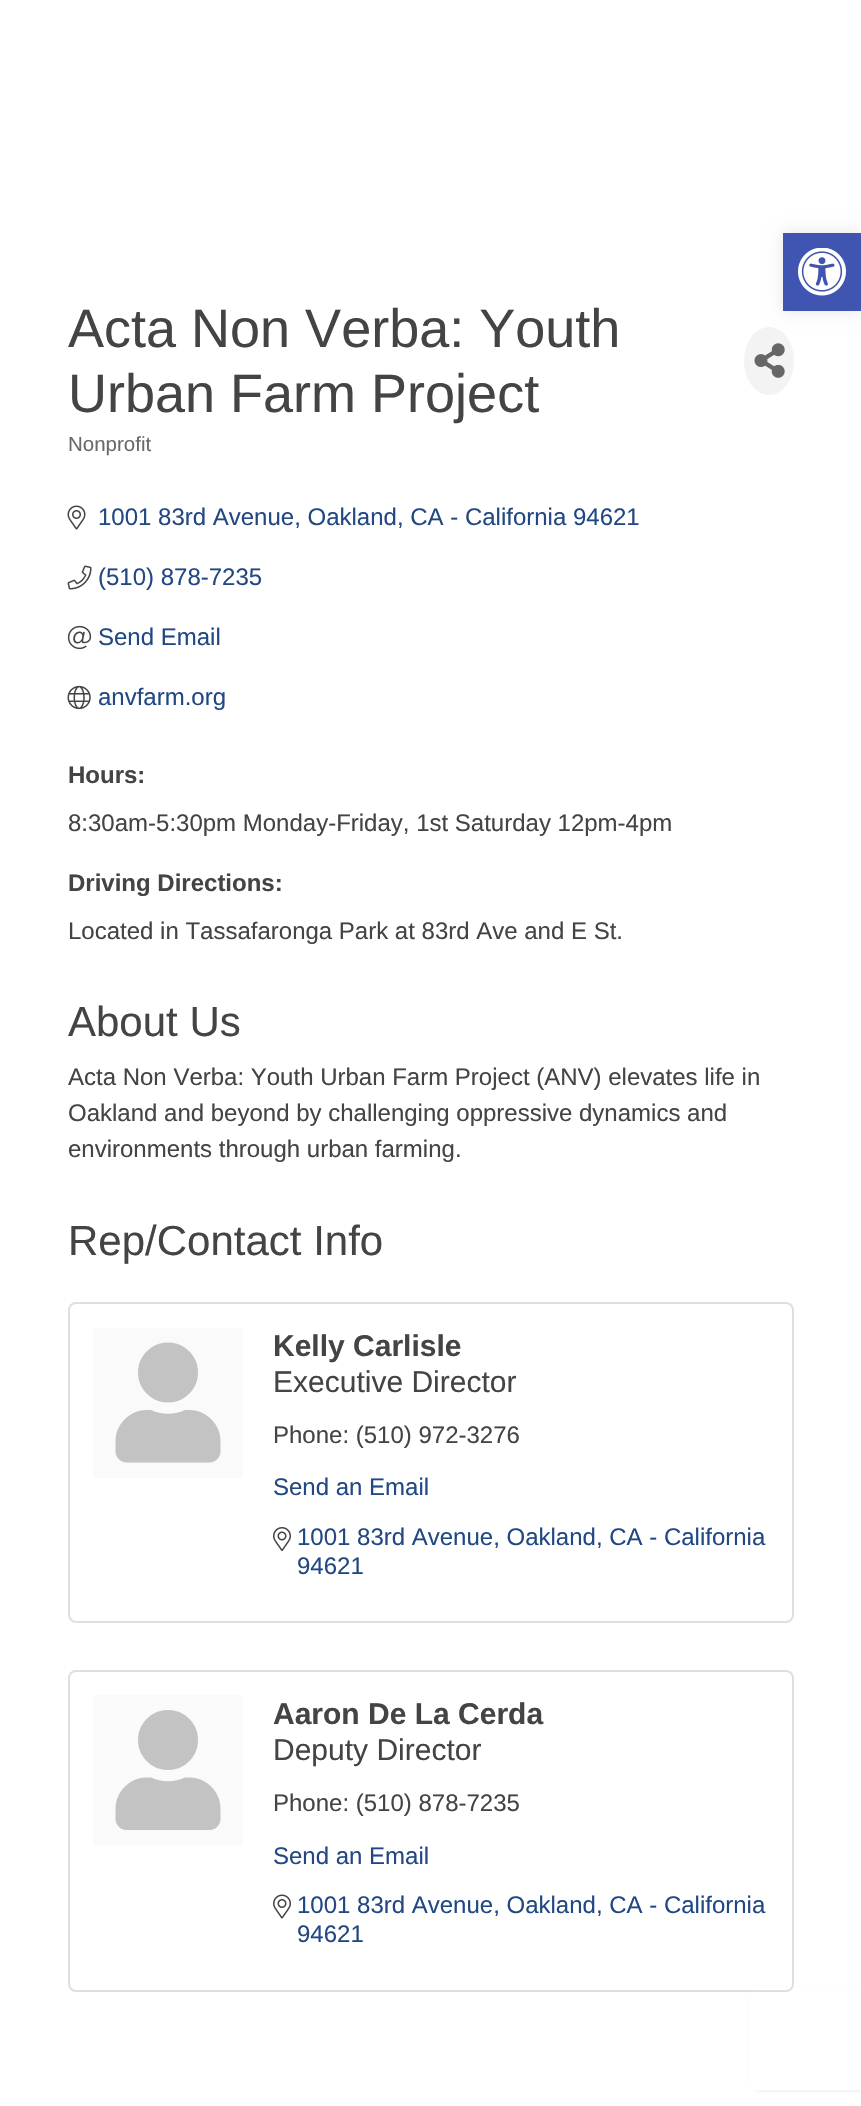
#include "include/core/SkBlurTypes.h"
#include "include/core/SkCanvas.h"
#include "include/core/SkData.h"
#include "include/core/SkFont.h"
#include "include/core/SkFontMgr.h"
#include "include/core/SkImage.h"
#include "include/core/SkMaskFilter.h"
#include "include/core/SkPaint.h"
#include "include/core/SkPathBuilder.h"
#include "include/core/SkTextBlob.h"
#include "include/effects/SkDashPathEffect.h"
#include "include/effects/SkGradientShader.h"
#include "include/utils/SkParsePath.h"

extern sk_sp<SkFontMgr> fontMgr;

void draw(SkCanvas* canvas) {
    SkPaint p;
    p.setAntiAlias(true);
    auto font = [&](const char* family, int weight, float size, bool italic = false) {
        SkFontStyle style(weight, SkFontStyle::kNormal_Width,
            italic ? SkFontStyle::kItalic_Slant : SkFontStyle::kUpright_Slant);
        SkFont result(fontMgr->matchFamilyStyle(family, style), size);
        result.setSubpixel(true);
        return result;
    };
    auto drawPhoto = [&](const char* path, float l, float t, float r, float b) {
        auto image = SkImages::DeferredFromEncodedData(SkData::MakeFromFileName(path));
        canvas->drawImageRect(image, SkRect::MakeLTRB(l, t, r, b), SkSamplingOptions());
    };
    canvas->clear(0xFFFFFFFF);
    p.setColor(0xFFF3F3F3);
    canvas->drawOval(SkRect::MakeLTRB(744, 327, 794, 395), p);
    p.setColor(0x1A000000);
    p.setMaskFilter(SkMaskFilter::MakeBlur(kNormal_SkBlurStyle, 7.5f));
    canvas->drawRect(SkRect::MakeLTRB(783, 233, 861, 311), p);
    p.setMaskFilter(nullptr);
    p.setColor(0xFF4054B2);
    canvas->drawRect(SkRect::MakeLTRB(783, 233, 861, 311), p);
    drawPhoto("media/1.png", 798, 248, 846, 296);
    p.setColor(0xFF808080);
    p.setMaskFilter(SkMaskFilter::MakeBlur(kNormal_SkBlurStyle, 4));
    canvas->drawRoundRect(SkRect::MakeLTRB(756, 1995, 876, 2085), 3, 3, p);
    p.setMaskFilter(nullptr);
    p.setColor(0xFFFFFFFF);
    canvas->drawRect(SkRect::MakeLTRB(748, 1987, 861, 2090), p);
    auto font1 = font("Liberation Sans", 400, 54);
    p.setColor(0xFF444444);
    canvas->drawString("Acta Non Verba: Youth", 68, 347, font1, p);
    canvas->drawString("Urban Farm Project", 68, 412, font1, p);
    drawPhoto("media/2.png", 754, 343, 785, 378);
    auto font2 = font("Liberation Sans", 400, 20.5f);
    p.setColor(0xFF696969);
    canvas->drawString("Nonprofit", 68, 451, font2, p);
    drawPhoto("media/3.png", 67, 505, 86, 530);
    auto font3 = font("Liberation Sans", 400, 24);
    p.setColor(0xFF224884);
    canvas->drawString("1001 83rd Avenue, Oakland, CA - California 94621", 98, 525, font3, p);
    drawPhoto("media/4.png", 67, 565, 92, 590);
    canvas->drawString("(510) 878-7235", 98, 585, font3, p);
    drawPhoto("media/5.png", 67, 625, 92, 650);
    canvas->drawString("Send Email", 98, 645, font3, p);
    drawPhoto("media/6.png", 67, 685, 91, 710);
    canvas->drawString("anvfarm.org", 98, 705, font3, p);
    auto font4 = font("Liberation Sans", 700, 24);
    p.setColor(0xFF444444);
    canvas->drawString("Hours:", 68, 783, font4, p);
    canvas->drawString("8:30am-5:30pm Monday-Friday, 1st Saturday 12pm-4pm", 68, 831, font3, p);
    canvas->drawString("Driving Directions:", 68, 891, font4, p);
    canvas->drawString("Located in Tassafaronga Park at 83rd Ave and E St.", 68, 939, font3, p);
    auto font5 = font("Liberation Sans", 400, 42);
    canvas->drawString("About Us", 68, 1036, font5, p);
    {
        const struct { const char* s; float x, y; } items[] = {
            {"Acta Non Verba: Youth Urban Farm Project (ANV) elevates life in", 68, 1085},
            {"Oakland and beyond by challenging oppressive dynamics and", 68, 1121},
            {"environments through urban farming.", 68, 1157},
        };
        for (auto [s, x, y] : items) {
            canvas->drawString(s, x, y, font3, p);
        }
    }
    canvas->drawString("Rep/Contact Info", 68, 1255, font5, p);
    p.setStyle(SkPaint::kStroke_Style);
    p.setStrokeWidth(2);
    p.setColor(0xFFDFDFDF);
    canvas->drawRoundRect(SkRect::MakeLTRB(69, 1303, 793, 1622), 7, 7, p);
    p.setStyle(SkPaint::kFill_Style);
    p.setColor(0xFFFAFAFA);
    canvas->drawRect(SkRect::MakeLTRB(93, 1328, 243, 1478), p);
    drawPhoto("media/7.png", 115, 1342, 221, 1463);
    auto font6 = font("Liberation Sans", 700, 30);
    p.setColor(0xFF444444);
    canvas->drawString("Kelly Carlisle", 273, 1356, font6, p);
    auto font7 = font("Liberation Sans", 400, 30);
    canvas->drawString("Executive Director", 273, 1392, font7, p);
    canvas->drawString("Phone: (510) 972-3276", 273, 1443, font3, p);
    p.setColor(0xFF224884);
    canvas->drawString("Send an Email", 273, 1495, font3, p);
    drawPhoto("media/8.png", 273, 1527, 291, 1551);
    canvas->drawString("1001 83rd Avenue, Oakland, CA - California", 297, 1545, font3, p);
    canvas->drawString("94621", 297, 1574, font3, p);
    p.setStyle(SkPaint::kStroke_Style);
    p.setColor(0xFFDFDFDF);
    canvas->drawRoundRect(SkRect::MakeLTRB(69, 1671, 793, 1991), 7, 7, p);
    p.setStyle(SkPaint::kFill_Style);
    p.setColor(0xFFFAFAFA);
    canvas->drawRect(SkRect::MakeLTRB(93, 1695, 243, 1845), p);
    drawPhoto("media/9.png", 115, 1710, 221, 1830);
    p.setColor(0xFF444444);
    canvas->drawString("Aaron De La Cerda", 273, 1724, font6, p);
    canvas->drawString("Deputy Director", 273, 1760, font7, p);
    canvas->drawString("Phone: (510) 878-7235", 273, 1811, font3, p);
    p.setColor(0xFF224884);
    canvas->drawString("Send an Email", 273, 1864, font3, p);
    drawPhoto("media/10.png", 273, 1894, 291, 1919);
    canvas->drawString("1001 83rd Avenue, Oakland, CA - California", 297, 1913, font3, p);
    canvas->drawString("94621", 297, 1942, font3, p);
}
